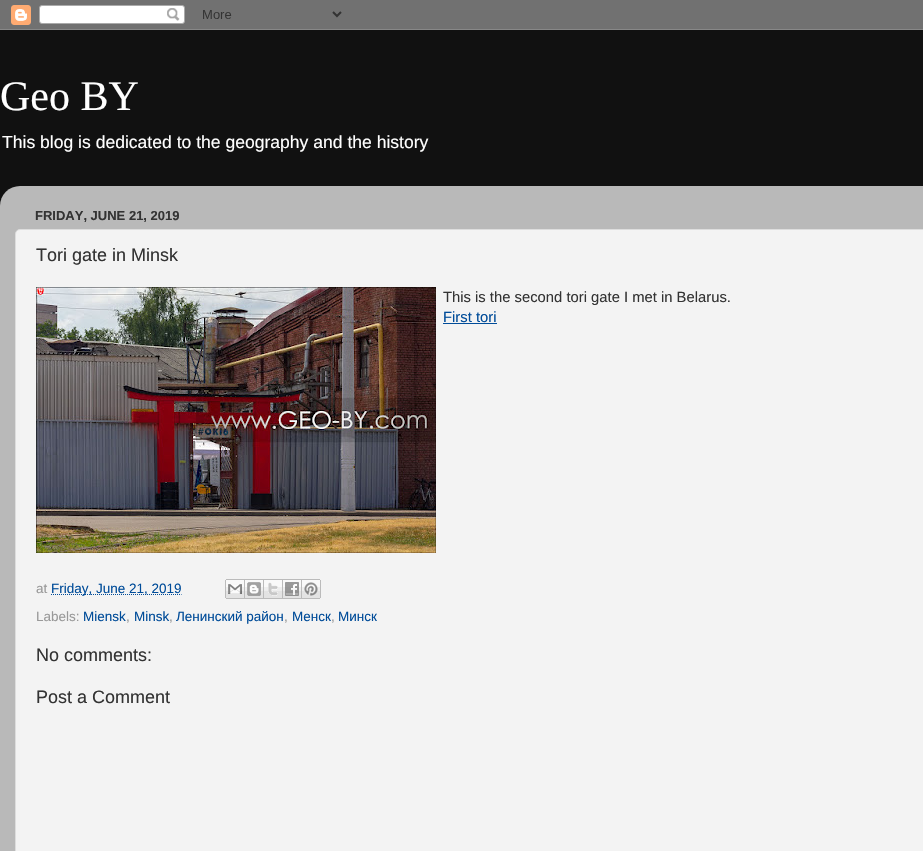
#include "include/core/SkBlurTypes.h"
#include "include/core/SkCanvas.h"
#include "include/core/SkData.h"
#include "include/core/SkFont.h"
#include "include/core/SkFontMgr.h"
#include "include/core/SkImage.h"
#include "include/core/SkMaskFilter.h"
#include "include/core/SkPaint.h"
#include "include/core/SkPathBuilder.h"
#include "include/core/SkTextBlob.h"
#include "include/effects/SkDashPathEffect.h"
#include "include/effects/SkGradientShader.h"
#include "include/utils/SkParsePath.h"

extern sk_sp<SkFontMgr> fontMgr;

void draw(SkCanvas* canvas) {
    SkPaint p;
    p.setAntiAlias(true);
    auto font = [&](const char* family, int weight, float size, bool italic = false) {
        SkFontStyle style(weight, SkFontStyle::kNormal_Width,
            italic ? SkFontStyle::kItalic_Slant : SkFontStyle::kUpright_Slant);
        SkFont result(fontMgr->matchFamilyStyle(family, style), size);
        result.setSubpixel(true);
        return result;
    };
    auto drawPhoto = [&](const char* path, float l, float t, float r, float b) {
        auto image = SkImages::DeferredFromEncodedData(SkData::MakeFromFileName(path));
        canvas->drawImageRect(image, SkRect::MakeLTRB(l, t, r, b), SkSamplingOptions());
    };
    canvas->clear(0xFF111111);
    drawPhoto("media/1.png", 0, 0, 923, 30);
    auto font1 = font("Liberation Serif", 400, 42);
    p.setColor(0xFFFFFFFF);
    canvas->drawString("Geo BY", 0, 110, font1, p);
    auto font2 = font("Liberation Sans", 400, 17.55f);
    canvas->drawString("This blog is dedicated to the geography and the history", 2, 148, font2, p);
    drawPhoto("media/2.png", 0, 186, 923, 851);
    auto font3 = font("Liberation Sans", 700, 13);
    p.setColor(0xFF333333);
    canvas->drawString("FRIDAY, JUNE 21, 2019", 35, 220, font3, p);
    p.setColor(0xFFF3F3F3);
    canvas->drawRoundRect(SkRect::MakeLTRB(15.5f, 229.5f, 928.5f, 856.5f), 4.5f, 4.5f, p);
    p.setStyle(SkPaint::kStroke_Style);
    p.setStrokeWidth(1);
    p.setColor(0xFFDDDDDD);
    canvas->drawRoundRect(SkRect::MakeLTRB(15.5f, 229.5f, 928.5f, 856.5f), 4.5f, 4.5f, p);
    auto font4 = font("Liberation Sans", 400, 18);
    p.setStyle(SkPaint::kFill_Style);
    p.setColor(0xFF333333);
    canvas->drawString("Tori gate in Minsk", 36, 261, font4, p);
    drawPhoto("media/3.png", 36, 287, 436, 553);
    auto font5 = font("Liberation Sans", 400, 14.8f);
    canvas->drawString("This is the second tori gate I met in Belarus.", 443, 302, font5, p);
    p.setColor(0xFF004C99);
    canvas->drawString("First tori", 443, 322, font5, p);
    canvas->drawRect(SkRect::MakeLTRB(443, 323, 497, 324), p);
    auto font6 = font("Liberation Sans", 400, 13.5f);
    p.setColor(0xFF999999);
    canvas->drawString("at", 36, 593, font6, p);
    p.setStyle(SkPaint::kStroke_Style);
    p.setColor(0xFF004C99);
    p.setPathEffect(SkDashPathEffect::Make({{1, 1}}, 0));
    canvas->drawPath(SkPathBuilder().moveTo(51, 594.5f).lineTo(181.5f, 594.5f).detach(), p);
    p.setPathEffect(nullptr);
    p.setStyle(SkPaint::kFill_Style);
    canvas->drawString("Friday, June 21, 2019", 51, 593, font6, p);
    drawPhoto("media/4.png", 225, 579, 245, 599);
    drawPhoto("media/5.png", 245, 579, 264, 599);
    drawPhoto("media/6.png", 264, 579, 283, 599);
    drawPhoto("media/7.png", 283, 579, 302, 599);
    drawPhoto("media/8.png", 302, 579, 321, 599);
    p.setColor(0xFF999999);
    canvas->drawString("Labels:", 36, 621, font6, p);
    p.setColor(0xFF004C99);
    canvas->drawString("Miensk", 83, 621, font6, p);
    p.setColor(0xFF999999);
    canvas->drawString(",", 126, 621, font6, p);
    p.setColor(0xFF004C99);
    canvas->drawString("Minsk", 134, 621, font6, p);
    p.setColor(0xFF999999);
    canvas->drawString(",", 169, 621, font6, p);
    p.setColor(0xFF004C99);
    canvas->drawString("Ленинский район", 176, 621, font6, p);
    p.setColor(0xFF999999);
    canvas->drawString(",", 284, 621, font6, p);
    p.setColor(0xFF004C99);
    canvas->drawString("Менск", 292, 621, font6, p);
    p.setColor(0xFF999999);
    canvas->drawString(",", 331, 621, font6, p);
    p.setColor(0xFF004C99);
    canvas->drawString("Минск", 338, 621, font6, p);
    p.setColor(0xFF333333);
    canvas->drawString("No comments:", 36, 661, font4, p);
    canvas->drawString("Post a Comment", 36, 703, font4, p);
}
